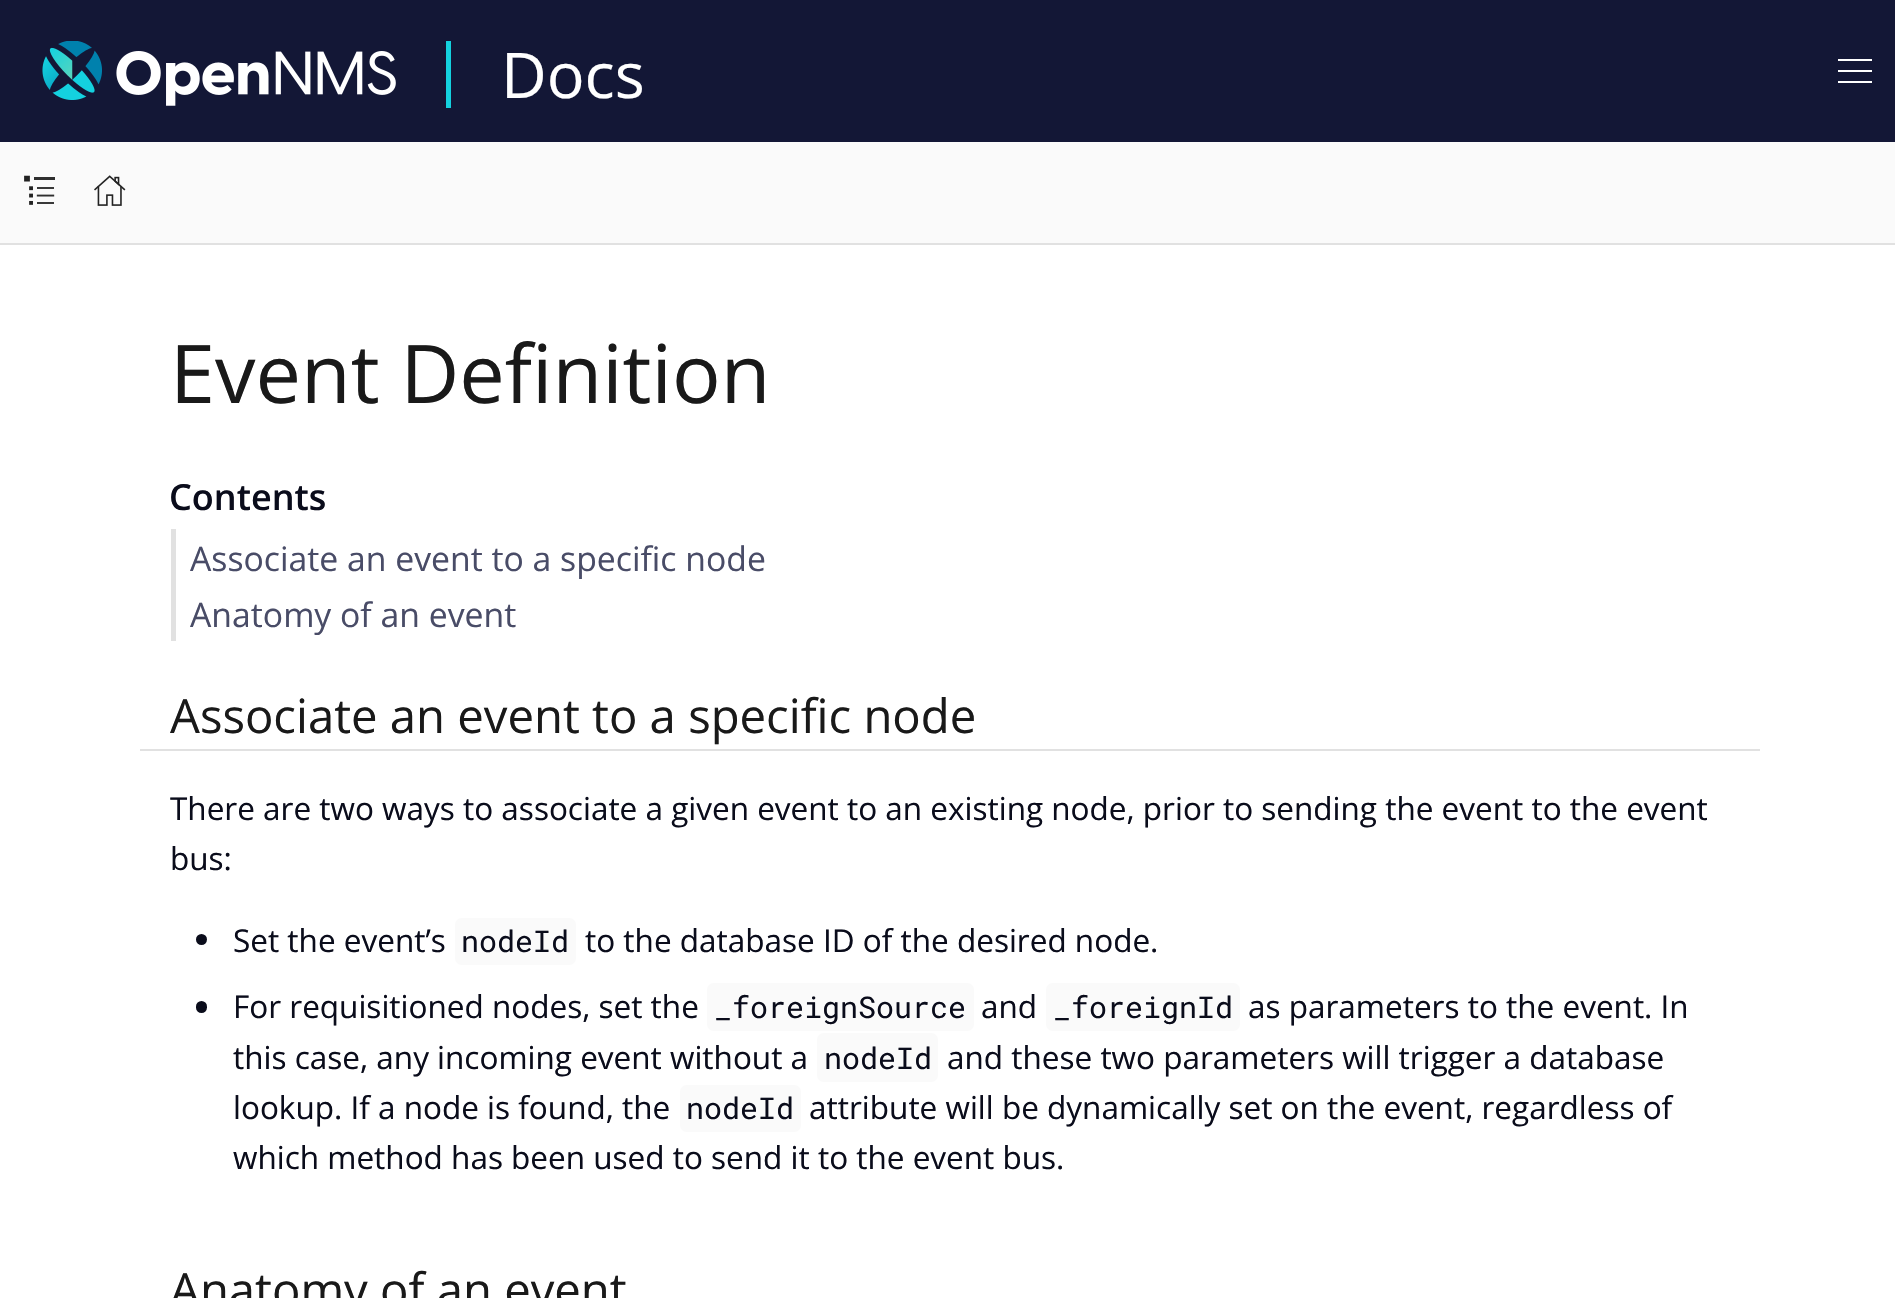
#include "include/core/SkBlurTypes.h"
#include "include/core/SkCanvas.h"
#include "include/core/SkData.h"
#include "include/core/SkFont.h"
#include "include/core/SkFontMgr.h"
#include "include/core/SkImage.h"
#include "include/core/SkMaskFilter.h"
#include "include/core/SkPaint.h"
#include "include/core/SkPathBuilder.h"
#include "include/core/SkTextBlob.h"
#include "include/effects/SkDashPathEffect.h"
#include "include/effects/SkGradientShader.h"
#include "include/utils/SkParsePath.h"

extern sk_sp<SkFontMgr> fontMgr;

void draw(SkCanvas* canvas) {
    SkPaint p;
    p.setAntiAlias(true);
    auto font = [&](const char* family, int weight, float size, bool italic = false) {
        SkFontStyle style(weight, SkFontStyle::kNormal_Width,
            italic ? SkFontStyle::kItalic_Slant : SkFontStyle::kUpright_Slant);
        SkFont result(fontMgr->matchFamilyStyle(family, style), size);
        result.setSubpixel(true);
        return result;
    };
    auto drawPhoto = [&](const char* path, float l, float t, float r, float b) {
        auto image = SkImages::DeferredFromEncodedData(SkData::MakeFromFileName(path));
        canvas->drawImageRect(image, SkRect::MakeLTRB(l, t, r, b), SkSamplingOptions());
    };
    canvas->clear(0xFFFFFFFF);
    p.setColor(0xFF131736);
    canvas->drawRect(SkRect::MakeLTRB(0, 0, 1895, 142), p);
    drawPhoto("media/1.png", 42, 41, 396, 106);
    p.setColor(0xFF14D1DF);
    canvas->drawRect(SkRect::MakeLTRB(446, 41, 451, 108), p);
    auto font1 = font("Open Sans", 400, 63);
    p.setColor(0xFFFFFFFF);
    canvas->drawString("Docs", 501, 98, font1, p);
    {
        const struct { float l, t, r, b; SkColor color; } items[] = {
            {1838, 59, 1872, 61, 0xFFFFFFFF},
            {1838, 70, 1872, 72, 0xFFFFFFFF},
            {1838, 81, 1872, 83, 0xFFFFFFFF},
        };
        for (auto [l, t, r, b, color] : items) {
            p.setColor(color);
            canvas->drawRect(SkRect::MakeLTRB(l, t, r, b), p);
        }
    }
    p.setColor(0xFFE1E1E1);
    canvas->drawPath(SkPathBuilder().moveTo(0, 243).lineTo(0, 245).lineTo(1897, 245).lineTo(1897, 144).lineTo(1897, 243).close().detach(), p);
    p.setColor(0xFFFAFAFA);
    canvas->drawRect(SkRect::MakeLTRB(0, 142, 1895, 243), p);
    drawPhoto("media/2.png", 24, 175, 55, 205);
    drawPhoto("media/3.png", 94, 175, 126, 206);
    auto font2 = font("Open Sans", 400, 81);
    p.setColor(0xFF191919);
    canvas->drawString("Event Definition", 170, 403, font2, p);
    auto font3 = font("Open Sans", 600, 36);
    p.setColor(0xFF0A0C1B);
    canvas->drawString("Contents", 169, 510, font3, p);
    p.setColor(0xFFE1E1E1);
    canvas->drawRect(SkRect::MakeLTRB(171, 529, 176, 641), p);
    auto font4 = font("Open Sans", 400, 33.75f);
    p.setColor(0xFF494C67);
    canvas->drawString("Associate an event to a specific node", 190, 571, font4, p);
    canvas->drawString("Anatomy of an event", 190, 627, font4, p);
    p.setColor(0xFFE1E1E1);
    canvas->drawRect(SkRect::MakeLTRB(140, 749, 1760, 751), p);
    auto font5 = font("Open Sans", 400, 47.25f);
    p.setColor(0xFF191919);
    canvas->drawString("Associate an event to a specific node", 170, 733, font5, p);
    auto font6 = font("Open Sans", 400, 31.5f);
    p.setColor(0xFF0A0C1B);
    canvas->drawString("There are two ways to associate a given event to an existing node, prior to sending the event to the event", 170, 820, font6, p);
    canvas->drawString("bus:", 170, 870, font6, p);
    canvas->drawCircle(201.5f, 939.5f, 5.5f, p);
    canvas->drawString("Set the event’s", 233, 952, font6, p);
    p.setColor(0xFFFAFAFA);
    canvas->drawRoundRect(SkRect::MakeLTRB(455, 918, 576, 965), 7, 7, p);
    auto font7 = font("Roboto Mono", 400, 30);
    p.setColor(0xFF0A0C1B);
    canvas->drawString("nodeId", 461, 952, font7, p);
    canvas->drawString("to the database ID of the desired node.", 585, 952, font6, p);
    canvas->drawRoundRect(SkRect::MakeLTRB(196, 1001, 207, 1013), 5.5f, 5.5f, p);
    canvas->drawString("For requisitioned nodes, set the", 233, 1018, font6, p);
    p.setColor(0xFFFAFAFA);
    canvas->drawRoundRect(SkRect::MakeLTRB(707, 983, 974, 1031), 7, 7, p);
    p.setColor(0xFF0A0C1B);
    canvas->drawString("_foreignSource", 714, 1018, font7, p);
    canvas->drawString("and", 981, 1018, font6, p);
    p.setColor(0xFFFAFAFA);
    canvas->drawRoundRect(SkRect::MakeLTRB(1046, 983, 1240, 1031), 7, 7, p);
    p.setColor(0xFF0A0C1B);
    canvas->drawString("_foreignId", 1053, 1018, font7, p);
    canvas->drawString("as parameters to the event. In", 1248, 1018, font6, p);
    canvas->drawString("this case, any incoming event without a", 233, 1069, font6, p);
    p.setColor(0xFFFAFAFA);
    canvas->drawRoundRect(SkRect::MakeLTRB(817, 1033, 938, 1082), 7, 7, p);
    p.setColor(0xFF0A0C1B);
    canvas->drawString("nodeId", 824, 1069, font7, p);
    canvas->drawString("and these two parameters will trigger a database", 947, 1069, font6, p);
    canvas->drawString("lookup. If a node is found, the", 233, 1119, font6, p);
    p.setColor(0xFFFAFAFA);
    canvas->drawRoundRect(SkRect::MakeLTRB(680, 1085, 801, 1132), 7, 7, p);
    p.setColor(0xFF0A0C1B);
    canvas->drawString("nodeId", 686, 1119, font7, p);
    canvas->drawString("attribute will be dynamically set on the event, regardless of", 809, 1119, font6, p);
    canvas->drawString("which method has been used to send it to the event bus.", 233, 1169, font6, p);
    p.setColor(0xFF191919);
    canvas->drawString("Anatomy of an event", 170, 1307, font5, p);
}
